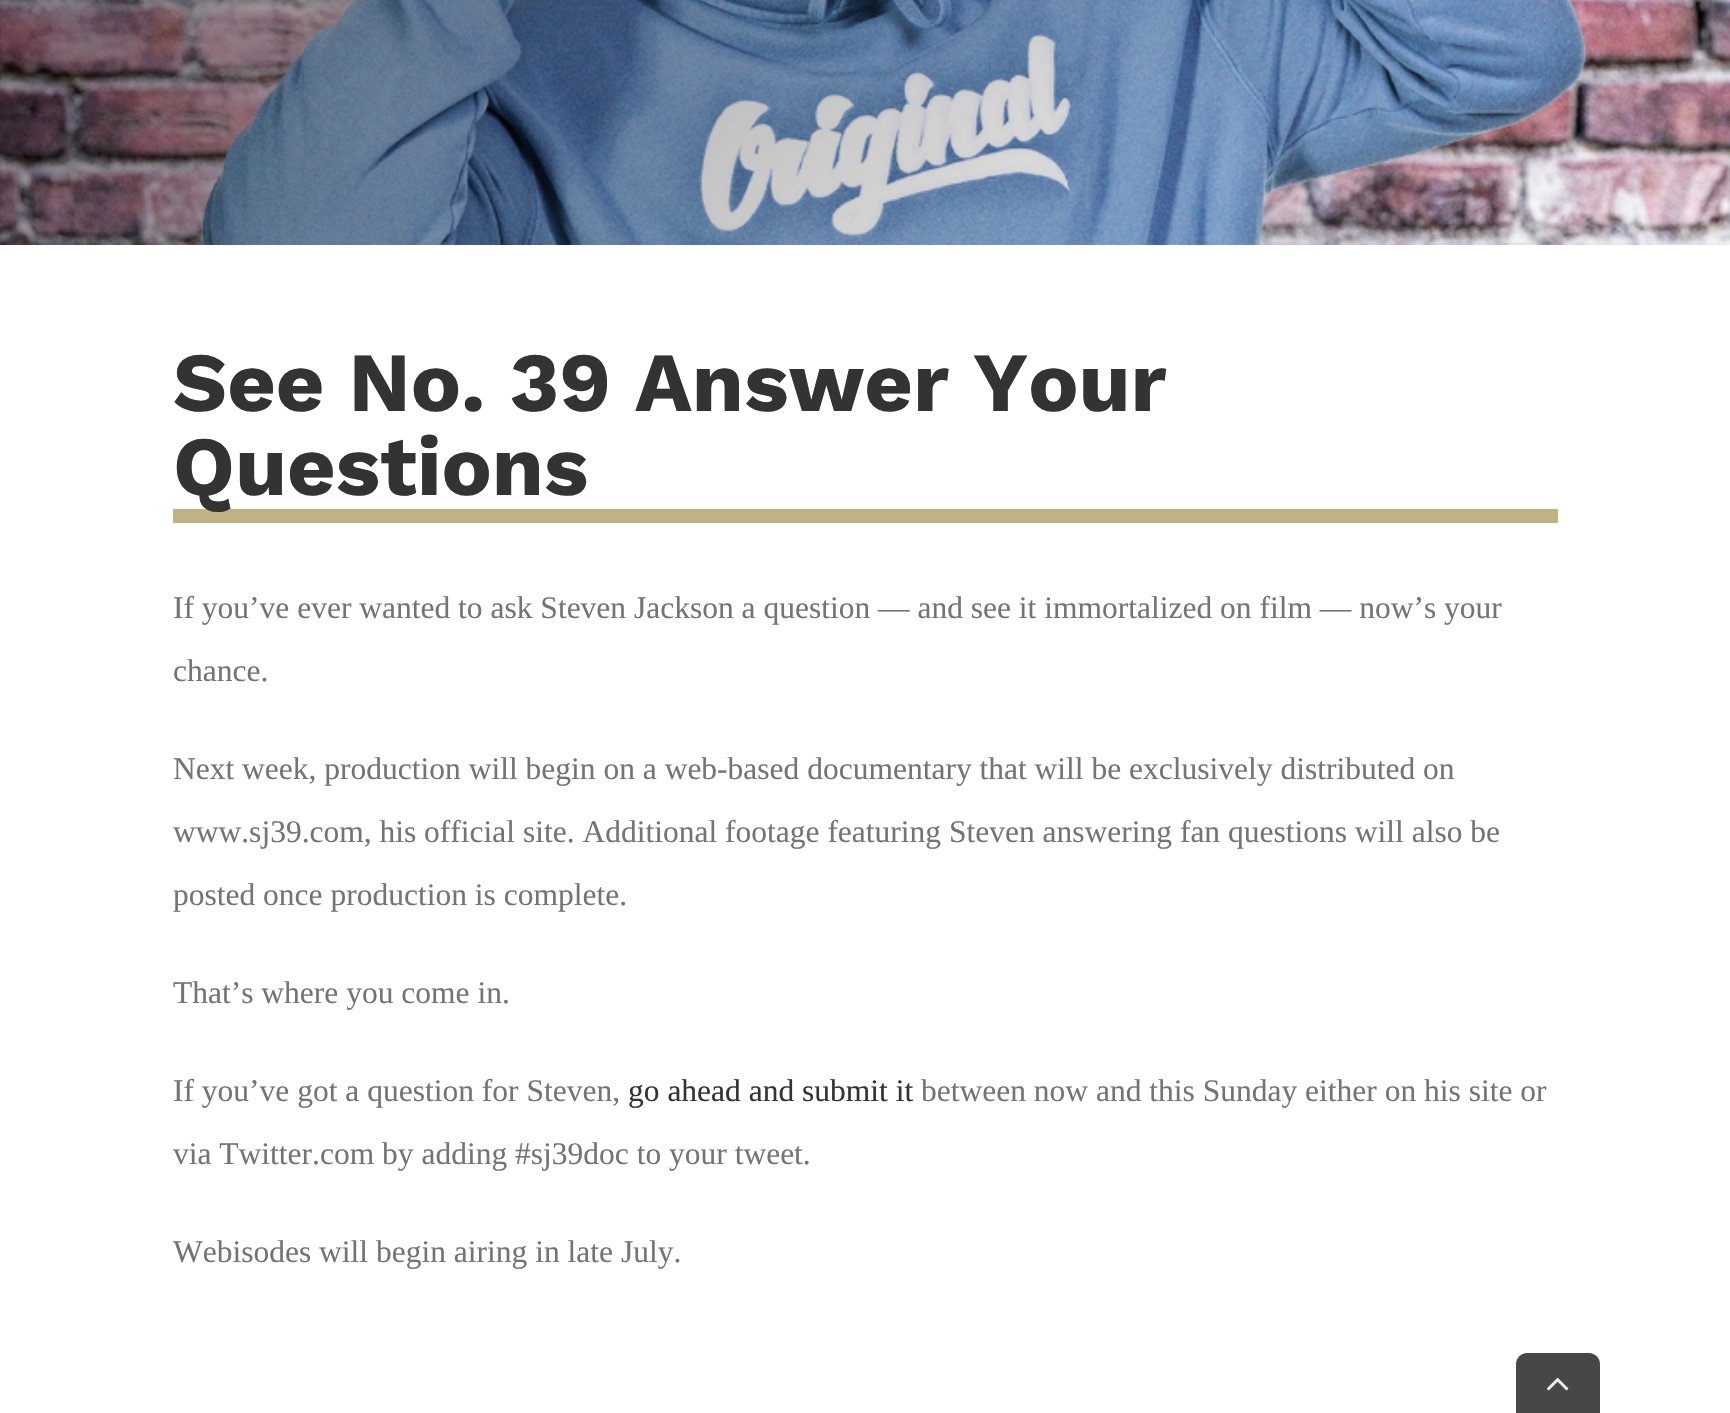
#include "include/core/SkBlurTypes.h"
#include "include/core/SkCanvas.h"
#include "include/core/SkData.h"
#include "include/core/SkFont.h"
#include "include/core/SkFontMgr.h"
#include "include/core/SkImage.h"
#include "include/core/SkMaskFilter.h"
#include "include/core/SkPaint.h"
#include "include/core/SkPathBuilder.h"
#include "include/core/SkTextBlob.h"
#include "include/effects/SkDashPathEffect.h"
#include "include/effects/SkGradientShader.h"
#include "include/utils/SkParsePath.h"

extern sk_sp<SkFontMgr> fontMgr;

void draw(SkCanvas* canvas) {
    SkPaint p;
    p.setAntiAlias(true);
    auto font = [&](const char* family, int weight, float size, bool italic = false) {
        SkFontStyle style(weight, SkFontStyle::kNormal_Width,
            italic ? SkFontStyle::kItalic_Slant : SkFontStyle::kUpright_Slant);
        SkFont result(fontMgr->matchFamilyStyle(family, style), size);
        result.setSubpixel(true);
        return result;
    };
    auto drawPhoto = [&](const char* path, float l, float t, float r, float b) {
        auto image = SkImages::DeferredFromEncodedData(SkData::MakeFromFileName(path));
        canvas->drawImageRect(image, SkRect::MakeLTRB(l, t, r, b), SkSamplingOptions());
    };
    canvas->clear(0xFFFFFFFF);
    drawPhoto("media/1.png", 0, 0, 1730, 245);
    p.setColor(0xFFC0B283);
    canvas->drawRect(SkRect::MakeLTRB(173, 509, 1558, 523), p);
    auto font1 = font("Work Sans", 700, 84);
    p.setColor(0xFF333333);
    canvas->drawString("See No. 39 Answer Your", 173, 411, font1, p);
    canvas->drawString("Questions", 173, 495, font1, p);
    auto font2 = font("Liberation Serif", 400, 31.5f);
    p.setColor(0xFF747474);
    {
        const struct { const char* s; float x, y; } items[] = {
            {"If you’ve ever wanted to ask Steven Jackson a question — and see it immortalized on film — now’s your", 173, 618},
            {"chance.", 173, 681},
            {"Next week, production will begin on a web-based documentary that will be exclusively distributed on", 173, 779},
            {"www.sj39.com, his official site. Additional footage featuring Steven answering fan questions will also be", 173, 842},
            {"posted once production is complete.", 173, 905},
            {"That’s where you come in.", 173, 1003},
            {"If you’ve got a question for Steven,", 173, 1101},
        };
        for (auto [s, x, y] : items) {
            canvas->drawString(s, x, y, font2, p);
        }
    }
    p.setColor(0xFF333333);
    canvas->drawString("go ahead and submit it", 628, 1101, font2, p);
    p.setColor(0xFF747474);
    {
        const struct { const char* s; float x, y; } items[] = {
            {"between now and this Sunday either on his site or", 921, 1101},
            {"via Twitter.com by adding #sj39doc to your tweet.", 173, 1164},
            {"Webisodes will begin airing in late July.", 173, 1262},
        };
        for (auto [s, x, y] : items) {
            canvas->drawString(s, x, y, font2, p);
        }
    }
    p.setColor(0xFF474747);
    canvas->drawPath(SkPathBuilder().moveTo(1527, 1353).lineTo(1589, 1353).cubicTo(1595, 1353, 1600, 1358, 1600, 1364).lineTo(1600, 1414).lineTo(1516, 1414).lineTo(1516, 1364).cubicTo(1516, 1358, 1521, 1353, 1527, 1353).close().detach(), p);
    drawPhoto("media/2.png", 1547, 1377, 1569, 1391);
}
